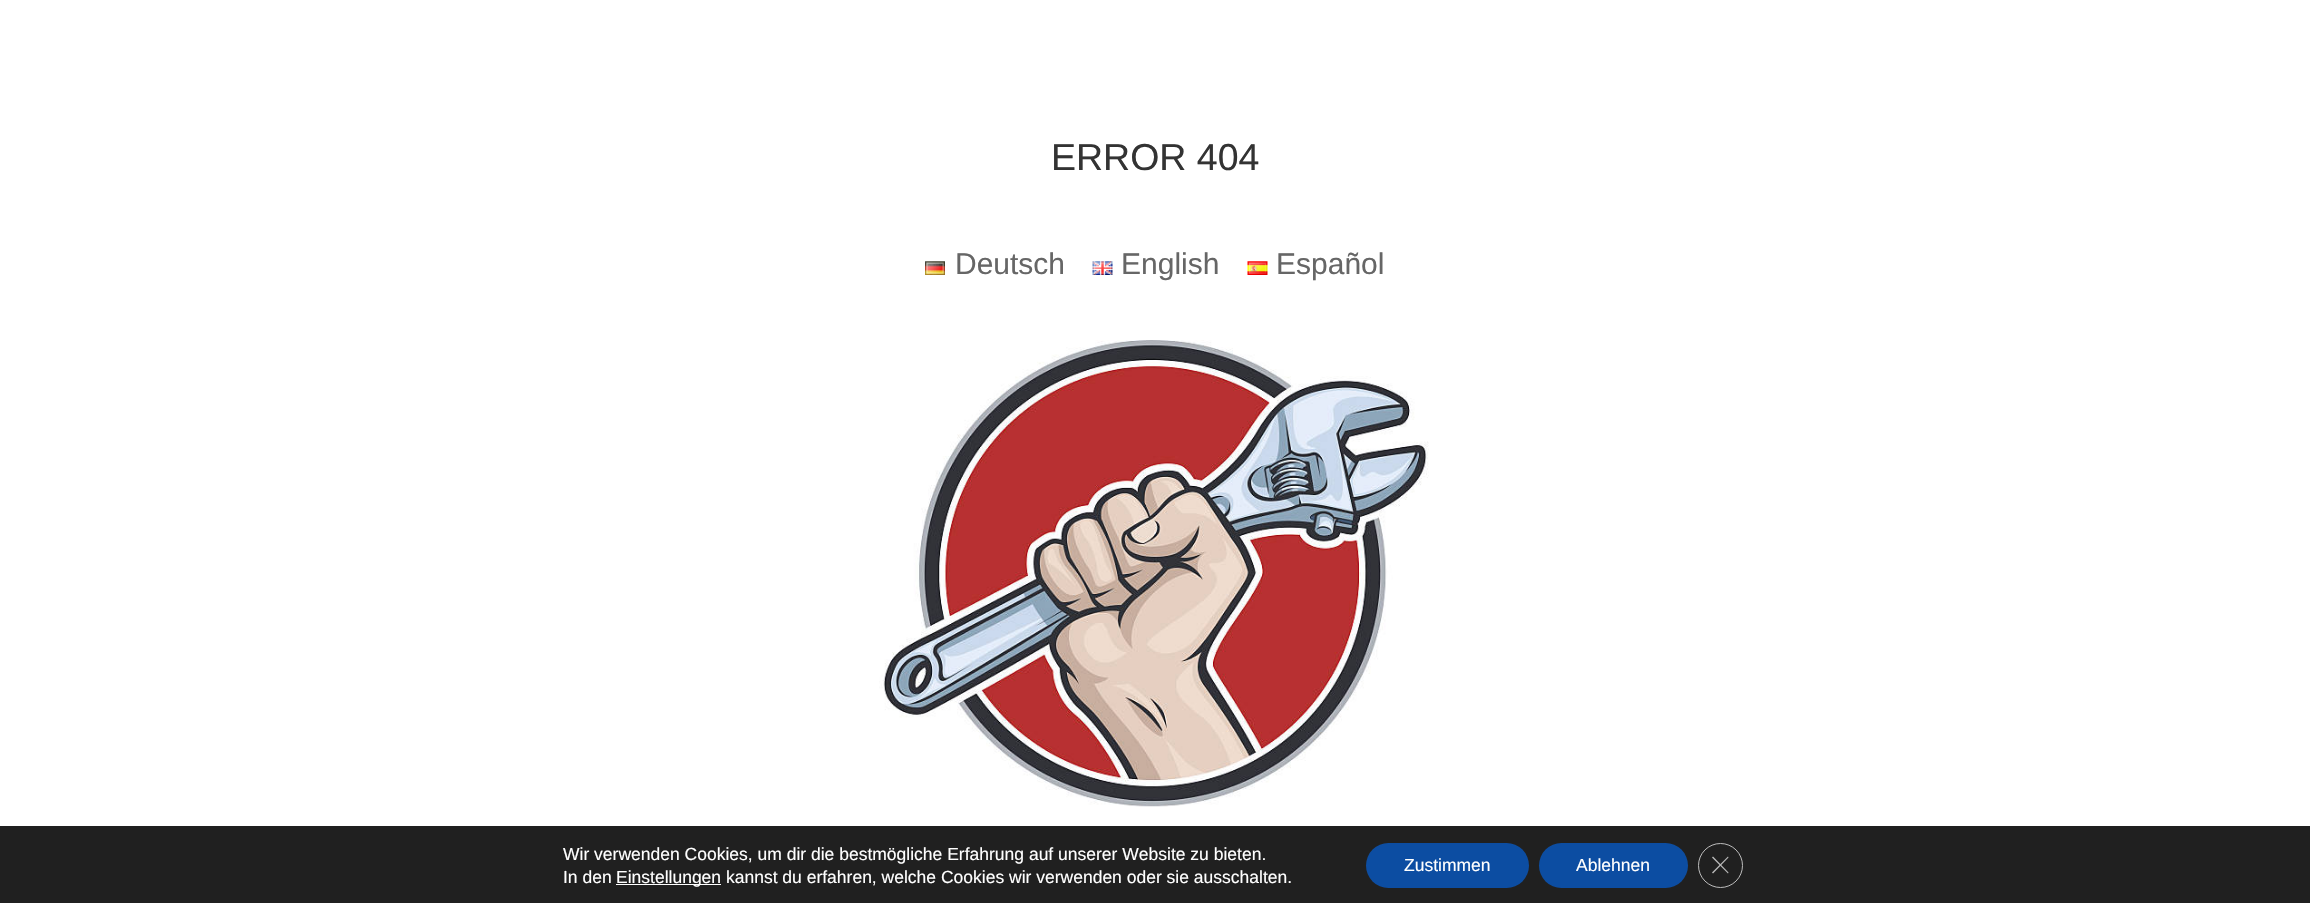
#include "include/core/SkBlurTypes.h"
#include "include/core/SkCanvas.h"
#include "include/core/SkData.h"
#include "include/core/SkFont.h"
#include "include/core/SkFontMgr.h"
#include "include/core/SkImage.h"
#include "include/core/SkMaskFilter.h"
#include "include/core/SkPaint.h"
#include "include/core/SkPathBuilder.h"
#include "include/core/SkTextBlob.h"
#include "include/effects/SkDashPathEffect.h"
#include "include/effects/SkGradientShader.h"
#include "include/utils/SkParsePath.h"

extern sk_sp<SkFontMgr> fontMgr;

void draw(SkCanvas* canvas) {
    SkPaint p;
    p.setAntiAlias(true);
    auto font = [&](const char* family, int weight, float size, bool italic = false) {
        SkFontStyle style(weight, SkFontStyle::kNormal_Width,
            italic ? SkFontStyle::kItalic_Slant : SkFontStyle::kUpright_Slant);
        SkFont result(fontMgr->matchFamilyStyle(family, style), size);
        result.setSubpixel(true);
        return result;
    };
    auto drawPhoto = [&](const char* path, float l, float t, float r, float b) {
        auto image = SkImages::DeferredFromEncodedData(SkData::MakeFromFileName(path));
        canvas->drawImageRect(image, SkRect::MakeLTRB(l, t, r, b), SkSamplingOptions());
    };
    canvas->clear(0xFFFFFFFF);
    auto font1 = font("Liberation Sans", 400, 37.5f);
    p.setColor(0xFF333333);
    canvas->drawString("ERROR 404", 1051, 170, font1, p);
    drawPhoto("media/1.png", 925, 261, 945, 275);
    auto font2 = font("Liberation Sans", 400, 30);
    p.setColor(0xFF666666);
    canvas->drawString("Deutsch", 955, 274, font2, p);
    drawPhoto("media/2.png", 1092, 261, 1113, 275);
    canvas->drawString("English", 1121, 274, font2, p);
    drawPhoto("media/3.png", 1247, 261, 1268, 275);
    canvas->drawString("Español", 1276, 274, font2, p);
    drawPhoto("media/4.png", 879, 340, 1429, 807);
    p.setColor(0xFF202020);
    canvas->drawRect(SkRect::MakeLTRB(0, 826, 2310, 903), p);
    auto font3 = font("Liberation Sans", 400, 17.5f);
    p.setColor(0xFFFFFFFF);
    canvas->drawString("Wir verwenden Cookies, um dir die bestmögliche Erfahrung auf unserer Website zu bieten.", 563, 860, font3, p);
    canvas->drawString("In den", 563, 883, font3, p);
    canvas->drawRect(SkRect::MakeLTRB(616, 884, 721, 885), p);
    canvas->drawString("Einstellungen kannst du erfahren, welche Cookies wir verwenden oder sie ausschalten.", 616, 883, font3, p);
    p.setColor(0xFF0C4DA2);
    canvas->drawRoundRect(SkRect::MakeLTRB(1366, 843, 1529, 888), 22.5f, 22.5f, p);
    p.setColor(0xFFFFFFFF);
    canvas->drawString("Zustimmen", 1404, 871, font3, p);
    p.setColor(0xFF0C4DA2);
    canvas->drawRoundRect(SkRect::MakeLTRB(1539, 843, 1688, 888), 22.5f, 22.5f, p);
    p.setColor(0xFFFFFFFF);
    canvas->drawString("Ablehnen", 1576, 871, font3, p);
    p.setStyle(SkPaint::kStroke_Style);
    p.setStrokeWidth(1);
    p.setColor(0xFFBCBCBC);
    canvas->drawCircle(1720.5f, 865.5f, 22, p);
    p.setStyle(SkPaint::kFill_Style);
    canvas->drawPath(SkPathBuilder().moveTo(1728, 856.5f).lineTo(1728.5f, 857.5f).lineTo(1713, 873.5f).lineTo(1712, 872.5f).close().detach(), p);
    canvas->drawPath(SkPathBuilder().moveTo(1712, 857.5f).lineTo(1713, 856.5f).lineTo(1728.5f, 872.5f).lineTo(1728, 873.5f).close().detach(), p);
}
